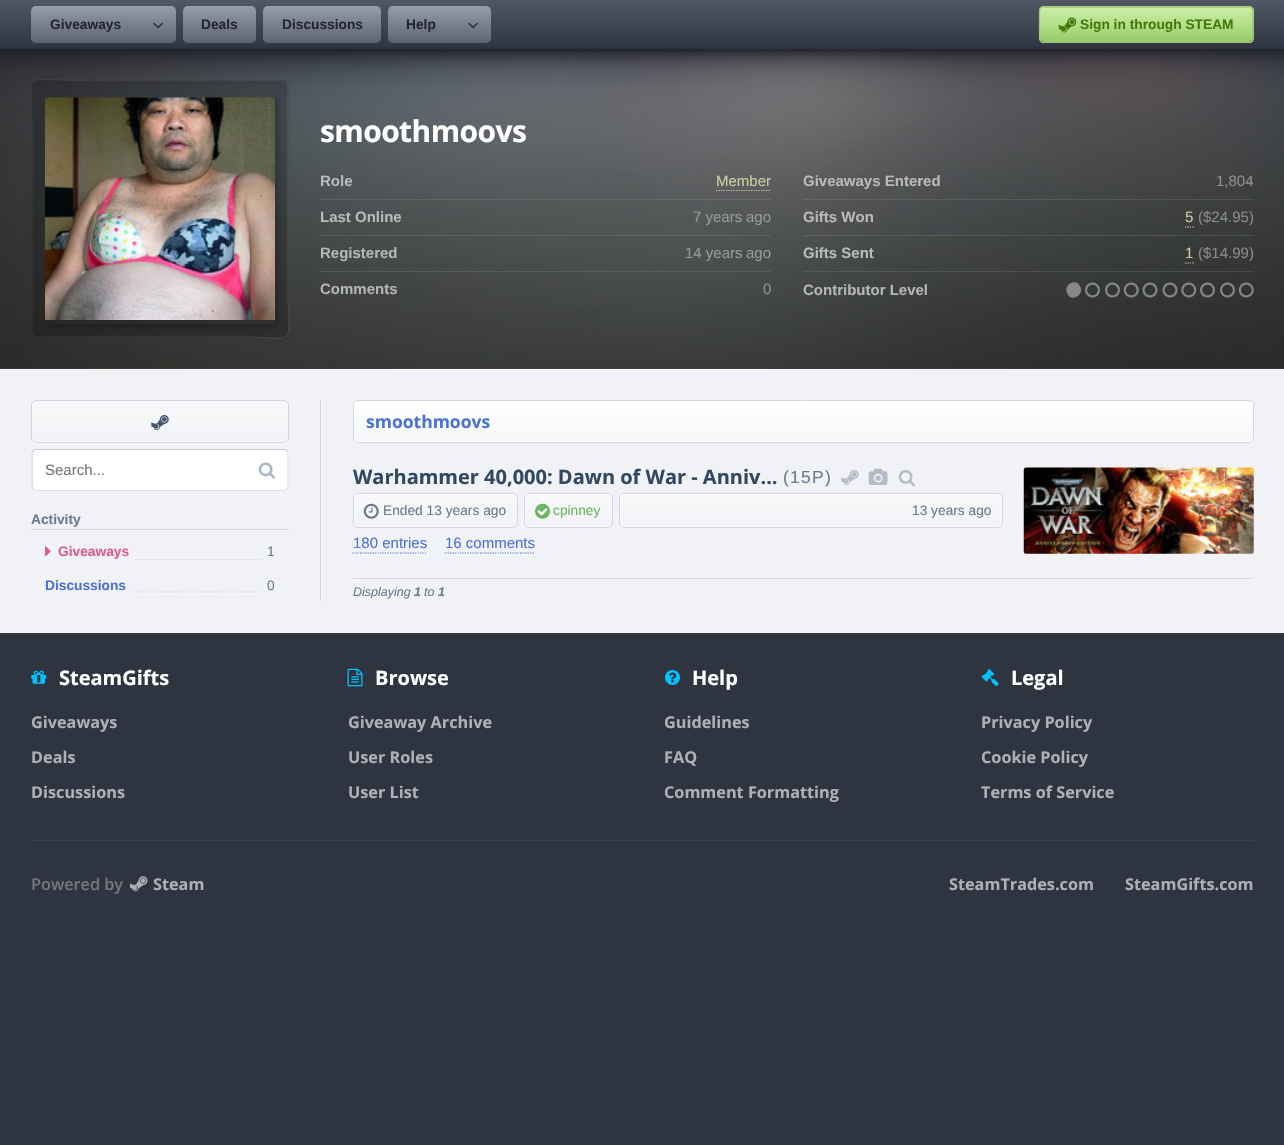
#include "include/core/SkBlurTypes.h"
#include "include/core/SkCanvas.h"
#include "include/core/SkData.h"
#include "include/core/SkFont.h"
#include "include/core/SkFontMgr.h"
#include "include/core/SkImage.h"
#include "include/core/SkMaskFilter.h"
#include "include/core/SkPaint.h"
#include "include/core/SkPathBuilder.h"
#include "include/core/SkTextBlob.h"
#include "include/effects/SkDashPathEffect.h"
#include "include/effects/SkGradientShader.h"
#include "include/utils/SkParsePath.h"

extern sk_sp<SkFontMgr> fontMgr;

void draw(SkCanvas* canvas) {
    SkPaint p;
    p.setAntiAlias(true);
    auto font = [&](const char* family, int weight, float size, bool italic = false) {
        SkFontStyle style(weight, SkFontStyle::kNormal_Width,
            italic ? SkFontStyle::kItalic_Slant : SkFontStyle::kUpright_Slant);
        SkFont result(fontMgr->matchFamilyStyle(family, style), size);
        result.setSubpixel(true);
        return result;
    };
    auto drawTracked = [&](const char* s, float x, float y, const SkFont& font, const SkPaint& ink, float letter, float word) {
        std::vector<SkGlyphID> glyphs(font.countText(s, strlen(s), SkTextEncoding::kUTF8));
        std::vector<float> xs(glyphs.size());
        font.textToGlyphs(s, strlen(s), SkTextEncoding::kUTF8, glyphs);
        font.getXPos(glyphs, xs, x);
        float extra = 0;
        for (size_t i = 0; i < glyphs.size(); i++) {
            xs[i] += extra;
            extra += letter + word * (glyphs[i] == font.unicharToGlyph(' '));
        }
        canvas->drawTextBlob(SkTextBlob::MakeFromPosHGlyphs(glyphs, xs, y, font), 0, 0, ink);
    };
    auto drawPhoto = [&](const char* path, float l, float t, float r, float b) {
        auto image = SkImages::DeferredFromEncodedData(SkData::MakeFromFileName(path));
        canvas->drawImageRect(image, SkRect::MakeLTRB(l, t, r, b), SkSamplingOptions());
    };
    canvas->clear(0xFF2F3540);
    {
        const SkColor colors[] = {0xFF515763, 0xFF2F3540};
        const float stops[] = {0, 1};
        const SkPoint ends[] = {{643, 0}, {643, 49}};
        p.setShader(SkGradientShader::MakeLinear(ends, colors, stops, 2, SkTileMode::kClamp));
        p.setAlpha(255);
    }
    canvas->drawRect(SkRect::MakeLTRB(0, 0, 1284, 46), p);
    {
        const SkColor colors[] = {0xFF959CAA, 0xFF5D6373};
        const float stops[] = {0, 1};
        const SkPoint ends[] = {{104, 6.2f}, {104, 43}};
        p.setShader(SkGradientShader::MakeLinear(ends, colors, stops, 2, SkTileMode::kClamp));
        p.setAlpha(255);
    }
    canvas->drawRoundRect(SkRect::MakeLTRB(31, 6, 176, 43), 5, 5, p);
    auto font1 = font("Liberation Sans", 700, 13.75f);
    p.setShader(nullptr);
    p.setColor(0xFF21262F);
    canvas->drawString("Giveaways", 50, 29, font1, p);
    drawPhoto("media/1.png", 153, 22, 163, 29);
    {
        const SkColor colors[] = {0xFF959CAA, 0xFF5D6373};
        const float stops[] = {0, 1};
        const SkPoint ends[] = {{219, 6.2f}, {219, 43}};
        p.setShader(SkGradientShader::MakeLinear(ends, colors, stops, 2, SkTileMode::kClamp));
        p.setAlpha(255);
    }
    canvas->drawRoundRect(SkRect::MakeLTRB(183, 6, 256, 43), 5, 5, p);
    p.setShader(nullptr);
    p.setColor(0xFF21262F);
    canvas->drawString("Deals", 201, 29, font1, p);
    {
        const SkColor colors[] = {0xFF959CAA, 0xFF5D6373};
        const float stops[] = {0, 1};
        const SkPoint ends[] = {{322, 6.2f}, {322, 43}};
        p.setShader(SkGradientShader::MakeLinear(ends, colors, stops, 2, SkTileMode::kClamp));
        p.setAlpha(255);
    }
    canvas->drawRoundRect(SkRect::MakeLTRB(263, 6, 381, 43), 5, 5, p);
    p.setShader(nullptr);
    p.setColor(0xFF21262F);
    canvas->drawString("Discussions", 282, 29, font1, p);
    {
        const SkColor colors[] = {0xFF959CAA, 0xFF5D6373};
        const float stops[] = {0, 1};
        const SkPoint ends[] = {{439, 6.2f}, {439, 43}};
        p.setShader(SkGradientShader::MakeLinear(ends, colors, stops, 2, SkTileMode::kClamp));
        p.setAlpha(255);
    }
    canvas->drawRoundRect(SkRect::MakeLTRB(388, 6, 491, 43), 5, 5, p);
    p.setShader(nullptr);
    p.setColor(0xFF21262F);
    canvas->drawString("Help", 406, 29, font1, p);
    drawPhoto("media/1.png", 468, 22, 478, 29);
    canvas->save();
    canvas->clipPath(SkPathBuilder().moveTo(1044, 6).lineTo(1249, 6).cubicTo(1252, 6, 1254, 8, 1254, 11).lineTo(1254, 38).cubicTo(1254, 41, 1252, 43, 1249, 43).lineTo(1044, 43).cubicTo(1041, 43, 1039, 41, 1039, 38).lineTo(1039, 11).cubicTo(1039, 8, 1041, 6, 1044, 6).close().detach(), true);
    {
        const SkColor colors[] = {0xFFCAEEA7, 0xFFB4DF8A, 0xFF9AC96A};
        const float stops[] = {0, 0.5f, 1};
        const SkPoint ends[] = {{1146, -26}, {1146, 7.5f}};
        p.setShader(SkGradientShader::MakeLinear(ends, colors, stops, 3, SkTileMode::kClamp));
        p.setAlpha(255);
    }
    canvas->drawRect(SkRect::MakeLTRB(1039, 6, 1254, 8), p);
    {
        const SkColor colors[] = {0xFFCAEEA7, 0xFFB4DF8A, 0xFF9AC96A};
        const float stops[] = {0, 0.5f, 1};
        const SkPoint ends[] = {{1146, 7.5f}, {1146, 41}};
        p.setShader(SkGradientShader::MakeLinear(ends, colors, stops, 3, SkTileMode::kClamp));
        p.setAlpha(255);
    }
    canvas->drawRect(SkRect::MakeLTRB(1039, 8, 1254, 41), p);
    {
        const SkColor colors[] = {0xFFCAEEA7, 0xFFB4DF8A, 0xFF9AC96A};
        const float stops[] = {0, 0.5f, 1};
        const SkPoint ends[] = {{1146, 41}, {1146, 75}};
        p.setShader(SkGradientShader::MakeLinear(ends, colors, stops, 3, SkTileMode::kClamp));
        p.setAlpha(255);
    }
    canvas->drawRect(SkRect::MakeLTRB(1039, 41, 1254, 43), p);
    canvas->restore();
    p.setStyle(SkPaint::kStroke_Style);
    p.setStrokeWidth(1.2f);
    p.setShader(nullptr);
    p.setColor(0xFFB9D393);
    canvas->drawPath(SkPathBuilder().moveTo(1040.5f, 8).lineTo(1043.5f, 7).lineTo(1214.5f, 7).lineTo(1249, 7).lineTo(1252, 8).detach(), p);
    p.setColor(0xFF96BC69);
    canvas->drawPath(SkPathBuilder().moveTo(1252, 8).cubicTo(1252.5f, 9, 1253, 10, 1253, 11).lineTo(1253, 37.5f).cubicTo(1253, 38.5f, 1252.5f, 40, 1252, 40.5f).detach(), p);
    p.setColor(0xFF73A442);
    canvas->drawPath(SkPathBuilder().moveTo(1252, 40.5f).lineTo(1249, 42).lineTo(1043.5f, 42).lineTo(1040.5f, 40.5f).detach(), p);
    p.setColor(0xFFA0C870);
    canvas->drawPath(SkPathBuilder().moveTo(1040.5f, 40.5f).cubicTo(1040, 40, 1039.5f, 38.5f, 1039.5f, 37.5f).lineTo(1039.5f, 11.5f).cubicTo(1039.5f, 10, 1040, 9, 1040.5f, 8).detach(), p);
    drawPhoto("media/2.png", 1058, 17, 1077, 33);
    p.setStyle(SkPaint::kFill_Style);
    p.setColor(0xFF457807);
    canvas->drawString("Sign in through STEAM", 1080, 29, font1, p);
    p.setColor(0xFF595947);
    canvas->drawRect(SkRect::MakeLTRB(0, 54, 1284, 369), p);
    drawPhoto("media/3.png", 0, 48, 1284, 369);
    p.setColor(0x33000000);
    canvas->drawRoundRect(SkRect::MakeLTRB(31, 80, 289, 338), 5, 5, p);
    p.setStyle(SkPaint::kStroke_Style);
    p.setColor(0x1AFFFFFF);
    canvas->drawPath(SkPathBuilder().moveTo(287, 82).lineTo(288, 85).lineTo(288, 291).cubicTo(288, 348.5f, 299.5f, 337, 242.5f, 337).lineTo(36, 337).lineTo(33, 335.5f).detach(), p);
    p.setColor(0x0DFFFFFF);
    canvas->drawPath(SkPathBuilder().moveTo(33, 335.5f).lineTo(32, 332.5f).lineTo(32, 126).cubicTo(32, 69, 20.5f, 80.5f, 77.5f, 80.5f).lineTo(284, 80.5f).lineTo(287, 82).detach(), p);
    canvas->save();
    canvas->clipPath(SkPathBuilder(SkPathFillType::kEvenOdd).moveTo(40, 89).lineTo(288, 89).lineTo(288, 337).lineTo(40, 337).close().moveTo(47.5f, 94).lineTo(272.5f, 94).cubicTo(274, 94, 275, 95, 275, 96.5f).lineTo(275, 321.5f).cubicTo(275, 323, 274, 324, 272.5f, 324).lineTo(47.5f, 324).cubicTo(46, 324, 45, 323, 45, 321.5f).lineTo(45, 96.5f).cubicTo(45, 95, 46, 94, 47.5f, 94).close().detach(), true);
    p.setStyle(SkPaint::kFill_Style);
    p.setColor(0x33000000);
    p.setMaskFilter(SkMaskFilter::MakeBlur(kNormal_SkBlurStyle, 2.5f));
    canvas->drawRoundRect(SkRect::MakeLTRB(49, 98, 279, 328), 2.5f, 2.5f, p);
    p.setMaskFilter(nullptr);
    canvas->restore();
    drawPhoto("media/4.png", 45, 97, 275, 320);
    auto font2 = font("Open Sans", 700, 30);
    p.setColor(0xFFFFFFFF);
    drawTracked("smoothmoovs", 320, 142, font2, p, -0.6f, 0);
    auto font3 = font("Liberation Sans", 700, 15);
    p.setColor(0xFFB8BABB);
    canvas->drawString("Role", 320, 186, font3, p);
    auto font4 = font("Liberation Sans", 400, 15);
    p.setColor(0xFFCCCCA3);
    canvas->drawString("Member", 716, 186, font4, p);
    p.setStyle(SkPaint::kStroke_Style);
    p.setPathEffect(SkDashPathEffect::Make({{1.25f, 1.25f}}, 0));
    canvas->drawPath(SkPathBuilder().moveTo(716, 190.5f).lineTo(771, 190.5f).detach(), p);
    p.setPathEffect(nullptr);
    p.setStyle(SkPaint::kFill_Style);
    p.setColor(0x1AFFFFFF);
    canvas->drawRect(SkRect::MakeLTRB(320, 199, 771, 200), p);
    p.setColor(0xFFB8BABB);
    canvas->drawString("Last Online", 320, 222, font3, p);
    p.setColor(0xFF989A9A);
    canvas->drawString("7 years", 693, 222, font4, p);
    canvas->drawString("ago", 746, 222, font4, p);
    p.setColor(0x1AFFFFFF);
    canvas->drawRect(SkRect::MakeLTRB(320, 235, 771, 236), p);
    p.setColor(0xFFB4B6B5);
    canvas->drawString("Registered", 320, 258, font3, p);
    p.setColor(0xFF989A9A);
    canvas->drawString("14 years", 685, 258, font4, p);
    canvas->drawString("ago", 746, 258, font4, p);
    p.setColor(0x1AFFFFFF);
    canvas->drawRect(SkRect::MakeLTRB(320, 271, 771, 272), p);
    p.setColor(0xFFB4B6B5);
    canvas->drawString("Comments", 320, 294, font3, p);
    p.setColor(0xFF8F9190);
    canvas->drawString("0", 763, 294, font4, p);
    p.setColor(0xFFB8BABB);
    canvas->drawString("Giveaways Entered", 803, 186, font3, p);
    p.setColor(0xFF8F9190);
    canvas->drawString("1,804", 1216, 186, font4, p);
    p.setColor(0x1AFFFFFF);
    canvas->drawRect(SkRect::MakeLTRB(803, 199, 1254, 200), p);
    p.setColor(0xFFB8BABB);
    canvas->drawString("Gifts Won", 803, 222, font3, p);
    p.setColor(0xFFCCCCA3);
    canvas->drawString("5", 1185, 222, font4, p);
    p.setStyle(SkPaint::kStroke_Style);
    canvas->drawPath(SkPathBuilder().moveTo(1185, 227).lineTo(1186.5f, 227).moveTo(1187.5f, 227).lineTo(1189, 227).moveTo(1190, 227).lineTo(1191, 227).moveTo(1192.5f, 227).lineTo(1194, 227).detach(), p);
    p.setStyle(SkPaint::kFill_Style);
    p.setColor(0xFF898B8B);
    {
        const struct { const char* s; float x, y; } items[] = {
            {"(", 1198, 222},
            {"$24.95", 1203, 222},
            {")", 1249, 222},
        };
        for (auto [s, x, y] : items) {
            canvas->drawString(s, x, y, font4, p);
        }
    }
    p.setColor(0x1AFFFFFF);
    canvas->drawRect(SkRect::MakeLTRB(803, 235, 1254, 236), p);
    p.setColor(0xFFB8BABB);
    canvas->drawString("Gifts Sent", 803, 258, font3, p);
    p.setColor(0xFFCCCCA3);
    canvas->drawString("1", 1185, 258, font4, p);
    p.setStyle(SkPaint::kStroke_Style);
    canvas->drawPath(SkPathBuilder().moveTo(1185, 263).lineTo(1186.5f, 263).moveTo(1187.5f, 263).lineTo(1189, 263).moveTo(1190, 263).lineTo(1191, 263).moveTo(1192.5f, 263).lineTo(1194, 263).detach(), p);
    p.setStyle(SkPaint::kFill_Style);
    p.setColor(0xFF898B8B);
    {
        const struct { const char* s; float x, y; } items[] = {
            {"(", 1198, 258},
            {"$14.99", 1203, 258},
            {")", 1249, 258},
        };
        for (auto [s, x, y] : items) {
            canvas->drawString(s, x, y, font4, p);
        }
    }
    p.setColor(0x1AFFFFFF);
    canvas->drawRect(SkRect::MakeLTRB(803, 271, 1254, 272), p);
    p.setColor(0xFFB4B6B5);
    canvas->drawString("Contributor Level", 803, 295, font3, p);
    p.setColor(0x66FFFFFF);
    canvas->drawPath(SkPathBuilder().moveTo(1080, 286).cubicTo(1085, 294.5f, 1072, 302.5f, 1067.5f, 294).cubicTo(1062.5f, 285.5f, 1075.5f, 277.5f, 1080, 286).close().detach(), p);
    drawPhoto("media/5.png", 1085, 282, 1100, 298);
    drawPhoto("media/6.png", 1105, 282, 1120, 298);
    drawPhoto("media/7.png", 1123, 282, 1139, 298);
    drawPhoto("media/8.png", 1142, 282, 1158, 298);
    drawPhoto("media/9.png", 1162, 282, 1178, 298);
    drawPhoto("media/10.png", 1181, 282, 1197, 298);
    drawPhoto("media/11.png", 1200, 282, 1215, 298);
    drawPhoto("media/12.png", 1220, 282, 1235, 298);
    drawPhoto("media/13.png", 1238, 282, 1254, 298);
    p.setColor(0xFFF0F2F5);
    canvas->drawRect(SkRect::MakeLTRB(0, 369, 1284, 633), p);
    canvas->save();
    canvas->clipPath(SkPathBuilder().moveTo(36, 400).lineTo(284, 400).cubicTo(287, 400, 289, 402, 289, 405).lineTo(289, 438).cubicTo(289, 441, 287, 443, 284, 443).lineTo(36, 443).cubicTo(33, 443, 31, 441, 31, 438).lineTo(31, 405).cubicTo(31, 402, 33, 400, 36, 400).close().detach(), true);
    {
        const SkColor colors[] = {0xFFF8F9FA, 0xFFF1F3F6};
        const float stops[] = {0, 1};
        const SkPoint ends[] = {{160, 401}, {160, 441}};
        p.setShader(SkGradientShader::MakeLinear(ends, colors, stops, 2, SkTileMode::kClamp));
        p.setAlpha(255);
    }
    canvas->drawRect(SkRect::MakeLTRB(31, 401, 289, 441), p);
    {
        const SkColor colors[] = {0xFFF8F9FA, 0xFFF1F3F6};
        const float stops[] = {0, 1};
        const SkPoint ends[] = {{160, 441}, {160, 481}};
        p.setShader(SkGradientShader::MakeLinear(ends, colors, stops, 2, SkTileMode::kClamp));
        p.setAlpha(255);
    }
    canvas->drawRect(SkRect::MakeLTRB(31, 441, 289, 443), p);
    canvas->restore();
    p.setStyle(SkPaint::kStroke_Style);
    p.setStrokeWidth(1);
    p.setShader(nullptr);
    p.setColor(0xFFD2D6E0);
    canvas->drawRoundRect(SkRect::MakeLTRB(31.5f, 400.5f, 288.5f, 442.5f), 4.5f, 4.5f, p);
    drawPhoto("media/14.png", 151, 415, 169, 430);
    p.setStyle(SkPaint::kFill_Style);
    p.setColor(0xFFFFFFFF);
    canvas->drawRoundRect(SkRect::MakeLTRB(31, 449, 289, 491), 5, 5, p);
    p.setStyle(SkPaint::kStroke_Style);
    p.setStrokeWidth(1.2f);
    p.setColor(0xFFC5CAD7);
    canvas->drawPath(SkPathBuilder().moveTo(33, 450.5f).cubicTo(34, 450, 35, 449.5f, 36, 449.5f).lineTo(284, 449.5f).cubicTo(285, 449.5f, 286, 450, 287, 450.5f).detach(), p);
    p.setColor(0xFFDEE0E8);
    canvas->drawPath(SkPathBuilder().moveTo(287, 450.5f).cubicTo(287.5f, 451.5f, 288, 452.5f, 288, 454).lineTo(288, 486).cubicTo(288, 487.5f, 287.5f, 488.5f, 287, 489.5f).cubicTo(286, 490, 285, 490.5f, 284, 490.5f).lineTo(36, 490.5f).cubicTo(35, 490.5f, 34, 490, 33, 489.5f).detach(), p);
    p.setColor(0xFFD2D4E0);
    canvas->drawPath(SkPathBuilder().moveTo(33, 489.5f).cubicTo(32.5f, 488.5f, 32, 487.5f, 32, 486).lineTo(32, 454).cubicTo(32, 452.5f, 32.5f, 451.5f, 33, 450.5f).detach(), p);
    p.setStyle(SkPaint::kFill_Style);
    p.setColor(0xFF757575);
    canvas->drawString("Search...", 45, 475, font4, p);
    drawPhoto("media/15.png", 258, 462, 275, 479);
    p.setColor(0xFFF5F6F8);
    canvas->drawPath(SkPathBuilder().moveTo(31, 493).lineTo(31, 531).lineTo(289, 531).lineTo(289, 493).lineTo(289, 530).lineTo(31, 530).close().detach(), p);
    p.setColor(0xFFD2D6E0);
    canvas->drawRect(SkRect::MakeLTRB(31, 529, 289, 530), p);
    p.setColor(0xFF6B7A8C);
    canvas->drawString("Activity", 31, 524, font1, p);
    drawPhoto("media/16.png", 45, 546, 51, 557);
    p.setColor(0xFFDA5D88);
    canvas->drawString("Giveaways", 58, 556, font1, p);
    auto font5 = font("Liberation Sans", 400, 13.75f);
    p.setColor(0xFF6B7A8C);
    canvas->drawString("1", 267, 556, font5, p);
    p.setColor(0xFFF5F6F8);
    canvas->drawRect(SkRect::MakeLTRB(135, 560, 261, 561), p);
    p.setStyle(SkPaint::kStroke_Style);
    p.setColor(0xFFD2D6E0);
    p.setPathEffect(SkDashPathEffect::Make({{1.25f, 1.25f}}, 0));
    canvas->drawPath(SkPathBuilder().moveTo(135, 559.5f).lineTo(261, 559.5f).detach(), p);
    p.setPathEffect(nullptr);
    p.setStyle(SkPaint::kFill_Style);
    p.setColor(0xFF4B72D4);
    canvas->drawString("Discussions", 45, 590, font1, p);
    p.setColor(0xFF6B7A8C);
    canvas->drawString("0", 267, 590, font5, p);
    p.setColor(0xFFF5F6F8);
    canvas->drawRect(SkRect::MakeLTRB(133, 593, 261, 594), p);
    p.setStyle(SkPaint::kStroke_Style);
    p.setColor(0xFFD2D6E0);
    p.setPathEffect(SkDashPathEffect::Make({{1.25f, 1.25f}}, 0));
    canvas->drawPath(SkPathBuilder().moveTo(132.5f, 592).lineTo(261, 592).detach(), p);
    p.setPathEffect(nullptr);
    p.setStyle(SkPaint::kFill_Style);
    p.setColor(0xFFF5F6F8);
    canvas->drawRect(SkRect::MakeLTRB(321, 400, 322, 601), p);
    p.setColor(0xFFD2D6E0);
    canvas->drawRect(SkRect::MakeLTRB(320, 400, 321, 601), p);
    canvas->save();
    canvas->clipPath(SkPathBuilder().moveTo(358, 400).lineTo(1249, 400).cubicTo(1252, 400, 1254, 402, 1254, 405).lineTo(1254, 438).cubicTo(1254, 441, 1252, 443, 1249, 443).lineTo(358, 443).cubicTo(355, 443, 353, 441, 353, 438).lineTo(353, 405).cubicTo(353, 402, 355, 400, 358, 400).close().detach(), true);
    {
        const SkColor colors[] = {0xFFFFFFFF, 0xFFF6F7F9};
        const float stops[] = {0, 1};
        const SkPoint ends[] = {{803, 401}, {803, 441}};
        p.setShader(SkGradientShader::MakeLinear(ends, colors, stops, 2, SkTileMode::kClamp));
        p.setAlpha(255);
    }
    canvas->drawRect(SkRect::MakeLTRB(353, 401, 1254, 441), p);
    {
        const SkColor colors[] = {0xFFFFFFFF, 0xFFF6F7F9};
        const float stops[] = {0, 1};
        const SkPoint ends[] = {{803, 441}, {803, 481}};
        p.setShader(SkGradientShader::MakeLinear(ends, colors, stops, 2, SkTileMode::kClamp));
        p.setAlpha(255);
    }
    canvas->drawRect(SkRect::MakeLTRB(353, 441, 1254, 443), p);
    canvas->restore();
    p.setStyle(SkPaint::kStroke_Style);
    p.setStrokeWidth(1);
    p.setShader(nullptr);
    p.setColor(0xFFD2D6E0);
    canvas->drawRoundRect(SkRect::MakeLTRB(353.5f, 400.5f, 1253.5f, 442.5f), 4.5f, 4.5f, p);
    auto font6 = font("Open Sans", 700, 17.5f);
    p.setStyle(SkPaint::kFill_Style);
    p.setColor(0xFF4B72D4);
    canvas->drawString("smoothmoovs", 366, 428, font6, p);
    auto font7 = font("Open Sans", 700, 20);
    p.setColor(0xFF324862);
    canvas->drawString("Warhammer 40,000: Dawn of War - Anniv...", 353, 484, font7, p);
    auto font8 = font("Liberation Sans", 400, 17.5f);
    p.setColor(0xFF6B7A8C);
    drawTracked("(15P)", 783, 483, font8, p, 1.25f, 0);
    drawPhoto("media/17.png", 841, 470, 859, 485);
    drawPhoto("media/18.png", 868, 468, 888, 485);
    drawPhoto("media/19.png", 898, 470, 915, 487);
    canvas->save();
    canvas->clipPath(SkPathBuilder().moveTo(358, 493).lineTo(513, 493).cubicTo(516, 493, 518, 495, 518, 498).lineTo(518, 523).cubicTo(518, 526, 516, 528, 513, 528).lineTo(358, 528).cubicTo(355, 528, 353, 526, 353, 523).lineTo(353, 498).cubicTo(353, 495, 355, 493, 358, 493).close().detach(), true);
    {
        const SkColor colors[] = {0xFFF9FAFB, 0xFFF5F7F9, 0xFFF2F3F6};
        const float stops[] = {0, 0.23f, 1};
        const SkPoint ends[] = {{435, 494}, {435, 526}};
        p.setShader(SkGradientShader::MakeLinear(ends, colors, stops, 3, SkTileMode::kClamp));
        p.setAlpha(255);
    }
    canvas->drawRect(SkRect::MakeLTRB(353, 494, 518, 526), p);
    {
        const SkColor colors[] = {0xFFF9FAFB, 0xFFF5F7F9, 0xFFF2F3F6};
        const float stops[] = {0, 0.23f, 1};
        const SkPoint ends[] = {{435, 526}, {435, 559}};
        p.setShader(SkGradientShader::MakeLinear(ends, colors, stops, 3, SkTileMode::kClamp));
        p.setAlpha(255);
    }
    canvas->drawRect(SkRect::MakeLTRB(353, 526, 518, 528), p);
    canvas->restore();
    p.setShader(nullptr);
    p.setColor(0x99FFFFFF);
    canvas->drawPath(SkPathBuilder().moveTo(359, 495).lineTo(515, 495).cubicTo(514, 494, 513, 494, 512, 494).lineTo(358, 494).cubicTo(356, 494, 354, 496, 354, 498).lineTo(354, 522).cubicTo(354, 523, 354, 524, 355, 525).lineTo(355, 503).cubicTo(355, 500, 355, 495, 359, 495).close().detach(), p);
    p.setStyle(SkPaint::kStroke_Style);
    p.setColor(0xFFD2D6E0);
    canvas->drawRoundRect(SkRect::MakeLTRB(353.5f, 493.5f, 517.5f, 527.5f), 4.5f, 4.5f, p);
    drawPhoto("media/20.png", 363, 503, 379, 519);
    p.setStyle(SkPaint::kFill_Style);
    p.setColor(0xFF6B7A8C);
    canvas->drawString("Ended 13 years ago", 383, 515, font5, p);
    canvas->save();
    canvas->clipPath(SkPathBuilder().moveTo(529, 493).lineTo(608, 493).cubicTo(611, 493, 613, 495, 613, 498).lineTo(613, 523).cubicTo(613, 526, 611, 528, 608, 528).lineTo(529, 528).cubicTo(526, 528, 524, 526, 524, 523).lineTo(524, 498).cubicTo(524, 495, 526, 493, 529, 493).close().detach(), true);
    {
        const SkColor colors[] = {0xFFF9FAFB, 0xFFF5F7F9, 0xFFF2F3F6};
        const float stops[] = {0, 0.23f, 1};
        const SkPoint ends[] = {{568, 494}, {568, 526}};
        p.setShader(SkGradientShader::MakeLinear(ends, colors, stops, 3, SkTileMode::kClamp));
        p.setAlpha(255);
    }
    canvas->drawRect(SkRect::MakeLTRB(524, 494, 613, 526), p);
    {
        const SkColor colors[] = {0xFFF9FAFB, 0xFFF5F7F9, 0xFFF2F3F6};
        const float stops[] = {0, 0.23f, 1};
        const SkPoint ends[] = {{568, 526}, {568, 559}};
        p.setShader(SkGradientShader::MakeLinear(ends, colors, stops, 3, SkTileMode::kClamp));
        p.setAlpha(255);
    }
    canvas->drawRect(SkRect::MakeLTRB(524, 526, 613, 528), p);
    canvas->restore();
    p.setShader(nullptr);
    p.setColor(0x99FFFFFF);
    canvas->drawPath(SkPathBuilder().moveTo(530, 495).lineTo(610, 495).cubicTo(609, 494, 608, 494, 607, 494).lineTo(529, 494).cubicTo(527, 494, 525, 496, 525, 498).lineTo(525, 522).cubicTo(525, 523, 525, 524, 526, 525).lineTo(526, 503).cubicTo(526, 500, 526, 495, 530, 495).close().detach(), p);
    p.setStyle(SkPaint::kStroke_Style);
    p.setColor(0xFFD2D6E0);
    canvas->drawRoundRect(SkRect::MakeLTRB(524.5f, 493.5f, 612.5f, 527.5f), 4.5f, 4.5f, p);
    drawPhoto("media/21.png", 535, 503, 550, 519);
    p.setStyle(SkPaint::kFill_Style);
    p.setColor(0xFF6DB563);
    canvas->drawString("cpinney", 553, 515, font5, p);
    canvas->save();
    canvas->clipPath(SkPathBuilder().moveTo(624, 493).lineTo(998, 493).cubicTo(1001, 493, 1003, 495, 1003, 498).lineTo(1003, 523).cubicTo(1003, 526, 1001, 528, 998, 528).lineTo(624, 528).cubicTo(621, 528, 619, 526, 619, 523).lineTo(619, 498).cubicTo(619, 495, 621, 493, 624, 493).close().detach(), true);
    {
        const SkColor colors[] = {0xFFF9FAFB, 0xFFF5F7F9, 0xFFF2F3F6};
        const float stops[] = {0, 0.23f, 1};
        const SkPoint ends[] = {{811, 494}, {811, 526}};
        p.setShader(SkGradientShader::MakeLinear(ends, colors, stops, 3, SkTileMode::kClamp));
        p.setAlpha(255);
    }
    canvas->drawRect(SkRect::MakeLTRB(619, 494, 1003, 526), p);
    {
        const SkColor colors[] = {0xFFF9FAFB, 0xFFF5F7F9, 0xFFF2F3F6};
        const float stops[] = {0, 0.23f, 1};
        const SkPoint ends[] = {{811, 526}, {811, 559}};
        p.setShader(SkGradientShader::MakeLinear(ends, colors, stops, 3, SkTileMode::kClamp));
        p.setAlpha(255);
    }
    canvas->drawRect(SkRect::MakeLTRB(619, 526, 1003, 528), p);
    canvas->restore();
    p.setShader(nullptr);
    p.setColor(0x99FFFFFF);
    canvas->drawPath(SkPathBuilder().moveTo(625, 495).lineTo(1000, 495).lineTo(997, 494).lineTo(624, 494).cubicTo(620, 494, 620, 499, 620, 502).cubicTo(620, 506, 619, 522, 621, 525).lineTo(621, 503).cubicTo(621, 500, 621, 495, 625, 495).close().detach(), p);
    p.setStyle(SkPaint::kStroke_Style);
    p.setColor(0xFFD2D6E0);
    canvas->drawRoundRect(SkRect::MakeLTRB(619.5f, 493.5f, 1002.5f, 527.5f), 4.5f, 4.5f, p);
    p.setStyle(SkPaint::kFill_Style);
    p.setColor(0xFF6B7A8C);
    canvas->drawString("13 years ago", 912, 515, font5, p);
    p.setColor(0xFF4B72D4);
    canvas->drawString("180 entries", 353, 548, font4, p);
    p.setColor(0xFFF5F6F8);
    canvas->drawRect(SkRect::MakeLTRB(353, 554, 426, 555), p);
    p.setStyle(SkPaint::kStroke_Style);
    p.setStrokeWidth(1.2f);
    p.setColor(0xFF4B72D4);
    p.setPathEffect(SkDashPathEffect::Make({{1.25f, 1.25f}}, 0));
    canvas->drawPath(SkPathBuilder().moveTo(352.5f, 553).lineTo(426, 553).detach(), p);
    p.setPathEffect(nullptr);
    p.setStyle(SkPaint::kFill_Style);
    canvas->drawString("16 comments", 445, 548, font4, p);
    p.setColor(0xFFF5F6F8);
    canvas->drawRect(SkRect::MakeLTRB(445, 554, 535, 555), p);
    p.setStyle(SkPaint::kStroke_Style);
    p.setColor(0xFF4B72D4);
    p.setPathEffect(SkDashPathEffect::Make({{1.25f, 1.25f}}, 0));
    canvas->drawPath(SkPathBuilder().moveTo(445, 553).lineTo(535, 553).detach(), p);
    p.setPathEffect(nullptr);
    drawPhoto("media/22.png", 1023, 467, 1254, 554);
    p.setStyle(SkPaint::kFill_Style);
    p.setColor(0xFFF5F6F8);
    canvas->drawRect(SkRect::MakeLTRB(353, 579, 1254, 580), p);
    p.setColor(0xFFD2D6E0);
    canvas->drawRect(SkRect::MakeLTRB(353, 578, 1254, 579), p);
    auto font9 = font("Liberation Sans", 400, 12.5f, true);
    p.setColor(0xFF6B7A8C);
    canvas->drawString("Displaying", 353, 596, font9, p);
    auto font10 = font("Liberation Sans", 700, 12.5f, true);
    canvas->drawString("1", 414, 596, font10, p);
    canvas->drawString("to", 424, 596, font9, p);
    canvas->drawString("1", 438, 596, font10, p);
    drawPhoto("media/23.png", 31, 670, 47, 684);
    p.setColor(0xFFFFFFFF);
    canvas->drawString("SteamGifts", 59, 685, font7, p);
    auto font11 = font("Open Sans", 700, 16.25f);
    p.setColor(0xFFACB1B9);
    {
        const struct { const char* s; float x, y; } items[] = {
            {"Giveaways", 31, 728},
            {"Deals", 31, 763},
            {"Discussions", 31, 798},
        };
        for (auto [s, x, y] : items) {
            canvas->drawString(s, x, y, font11, p);
        }
    }
    drawPhoto("media/24.png", 347, 668, 363, 687);
    p.setColor(0xFFFFFFFF);
    canvas->drawString("Browse", 375, 685, font7, p);
    p.setColor(0xFFACB1B9);
    {
        const struct { const char* s; float x, y; } items[] = {
            {"Giveaway Archive", 348, 728},
            {"User Roles", 348, 763},
            {"User List", 348, 798},
        };
        for (auto [s, x, y] : items) {
            canvas->drawString(s, x, y, font11, p);
        }
    }
    drawPhoto("media/25.png", 665, 670, 680, 685);
    p.setColor(0xFFFFFFFF);
    canvas->drawString("Help", 692, 685, font7, p);
    p.setColor(0xFFACB1B9);
    {
        const struct { const char* s; float x, y; } items[] = {
            {"Guidelines", 664, 728},
            {"FAQ", 664, 763},
            {"Comment Formatting", 664, 798},
        };
        for (auto [s, x, y] : items) {
            canvas->drawString(s, x, y, font11, p);
        }
    }
    drawPhoto("media/26.png", 981, 669, 999, 686);
    p.setColor(0xFFFFFFFF);
    canvas->drawString("Legal", 1011, 685, font7, p);
    p.setColor(0xFFACB1B9);
    {
        const struct { const char* s; float x, y; } items[] = {
            {"Privacy Policy", 981, 728},
            {"Cookie Policy", 981, 763},
            {"Terms of Service", 981, 798},
        };
        for (auto [s, x, y] : items) {
            canvas->drawString(s, x, y, font11, p);
        }
    }
    p.setColor(0xFF3B424F);
    canvas->drawRect(SkRect::MakeLTRB(31, 840, 1254, 841), p);
    auto font12 = font("Open Sans", 600, 16.25f);
    p.setColor(0xFF73777F);
    canvas->drawString("Powered by", 31, 890, font12, p);
    drawPhoto("media/27.png", 130, 876, 148, 892);
    p.setColor(0xFFACB1B9);
    {
        const struct { const char* s; float x, y; } items[] = {
            {"Steam", 153, 890},
            {"SteamTrades.com", 949, 890},
            {"SteamGifts.com", 1125, 890},
        };
        for (auto [s, x, y] : items) {
            canvas->drawString(s, x, y, font11, p);
        }
    }
}
